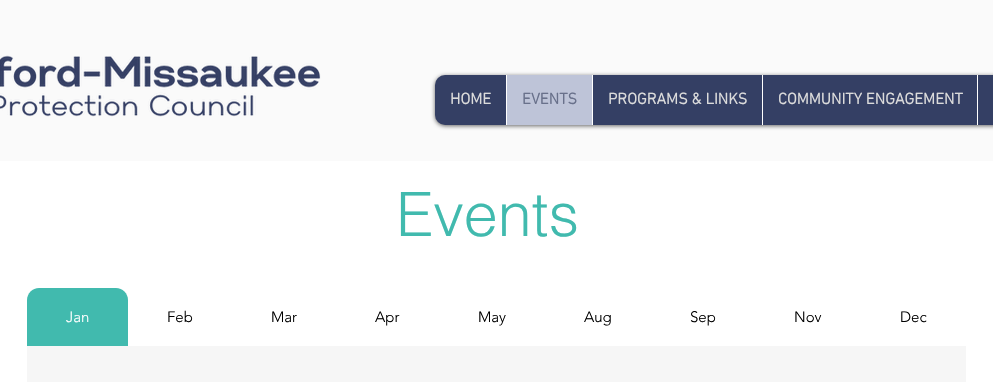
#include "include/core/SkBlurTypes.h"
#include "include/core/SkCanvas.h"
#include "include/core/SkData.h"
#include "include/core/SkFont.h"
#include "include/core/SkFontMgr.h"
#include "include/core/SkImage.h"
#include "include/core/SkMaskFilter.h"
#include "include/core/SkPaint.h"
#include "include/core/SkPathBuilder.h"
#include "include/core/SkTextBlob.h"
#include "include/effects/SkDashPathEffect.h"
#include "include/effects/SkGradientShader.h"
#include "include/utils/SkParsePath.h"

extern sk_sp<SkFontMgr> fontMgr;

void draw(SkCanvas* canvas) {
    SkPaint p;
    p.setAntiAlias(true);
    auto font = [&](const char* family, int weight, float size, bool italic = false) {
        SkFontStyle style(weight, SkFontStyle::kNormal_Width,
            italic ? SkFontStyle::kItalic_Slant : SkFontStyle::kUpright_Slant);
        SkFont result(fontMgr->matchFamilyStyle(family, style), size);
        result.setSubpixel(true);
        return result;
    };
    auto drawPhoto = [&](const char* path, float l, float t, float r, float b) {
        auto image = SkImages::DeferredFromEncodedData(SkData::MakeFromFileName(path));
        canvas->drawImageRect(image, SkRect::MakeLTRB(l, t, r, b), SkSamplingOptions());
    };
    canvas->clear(0xFFFAFAFA);
    drawPhoto("media/1.png", 0, 55, 321, 117);
    p.setColor(0x99000000);
    p.setMaskFilter(SkMaskFilter::MakeBlur(kNormal_SkBlurStyle, 2));
    canvas->drawRoundRect(SkRect::MakeLTRB(435, 76, 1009, 126), 10, 10, p);
    p.setMaskFilter(nullptr);
    p.setColor(0xFF343F64);
    canvas->drawRoundRect(SkRect::MakeLTRB(435, 75, 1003, 125), 10, 10, p);
    auto font1 = font("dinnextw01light", 700, 16);
    p.setColor(0xFFDBDBDB);
    canvas->drawString("HOME", 450, 104, font1, p);
    p.setColor(0xFFBEC4D8);
    canvas->drawRect(SkRect::MakeLTRB(507, 75, 592, 125), p);
    p.setColor(0xFFFFFFFF);
    canvas->drawRect(SkRect::MakeLTRB(506, 75, 507, 125), p);
    p.setColor(0xFF69718B);
    canvas->drawString("EVENTS", 522, 104, font1, p);
    p.setColor(0xFFFFFFFF);
    canvas->drawRect(SkRect::MakeLTRB(592, 75, 593, 125), p);
    p.setColor(0xFFDBDBDB);
    canvas->drawString("PROGRAMS & LINKS", 608, 104, font1, p);
    p.setColor(0xFFFFFFFF);
    canvas->drawRect(SkRect::MakeLTRB(762, 75, 763, 125), p);
    p.setColor(0xFFDBDBDB);
    canvas->drawString("COMMUNITY ENGAGEMENT", 778, 104, font1, p);
    p.setColor(0xFFFFFFFF);
    canvas->drawRect(SkRect::MakeLTRB(977, 75, 978, 125), p);
    canvas->drawRect(SkRect::MakeLTRB(0, 161, 993, 382), p);
    auto font2 = font("helvetica", 300, 61);
    p.setColor(0xFF41BAAE);
    canvas->drawString("Events", 396, 236, font2, p);
    canvas->drawPath(SkPathBuilder().moveTo(39, 288).lineTo(116, 288).cubicTo(122.5f, 288, 128, 293.5f, 128, 300).lineTo(128, 346).lineTo(27, 346).lineTo(27, 300).cubicTo(27, 293.5f, 32.5f, 288, 39, 288).close().detach(), p);
    auto font3 = font("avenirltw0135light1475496", 300, 15);
    p.setColor(0xFFFFFFFF);
    canvas->drawString("Jan", 66, 322, font3, p);
    p.setColor(0xFF000000);
    {
        const struct { const char* s; float x, y; } items[] = {
            {"Feb", 167, 322},
            {"Mar", 271, 322},
            {"Apr", 375, 322},
            {"May", 478, 322},
            {"Aug", 584, 322},
            {"Sep", 690, 322},
            {"Nov", 794, 322},
            {"Dec", 900, 322},
        };
        for (auto [s, x, y] : items) {
            canvas->drawString(s, x, y, font3, p);
        }
    }
    p.setColor(0xFFF6F6F6);
    canvas->drawRect(SkRect::MakeLTRB(27, 346, 966, 382), p);
}
